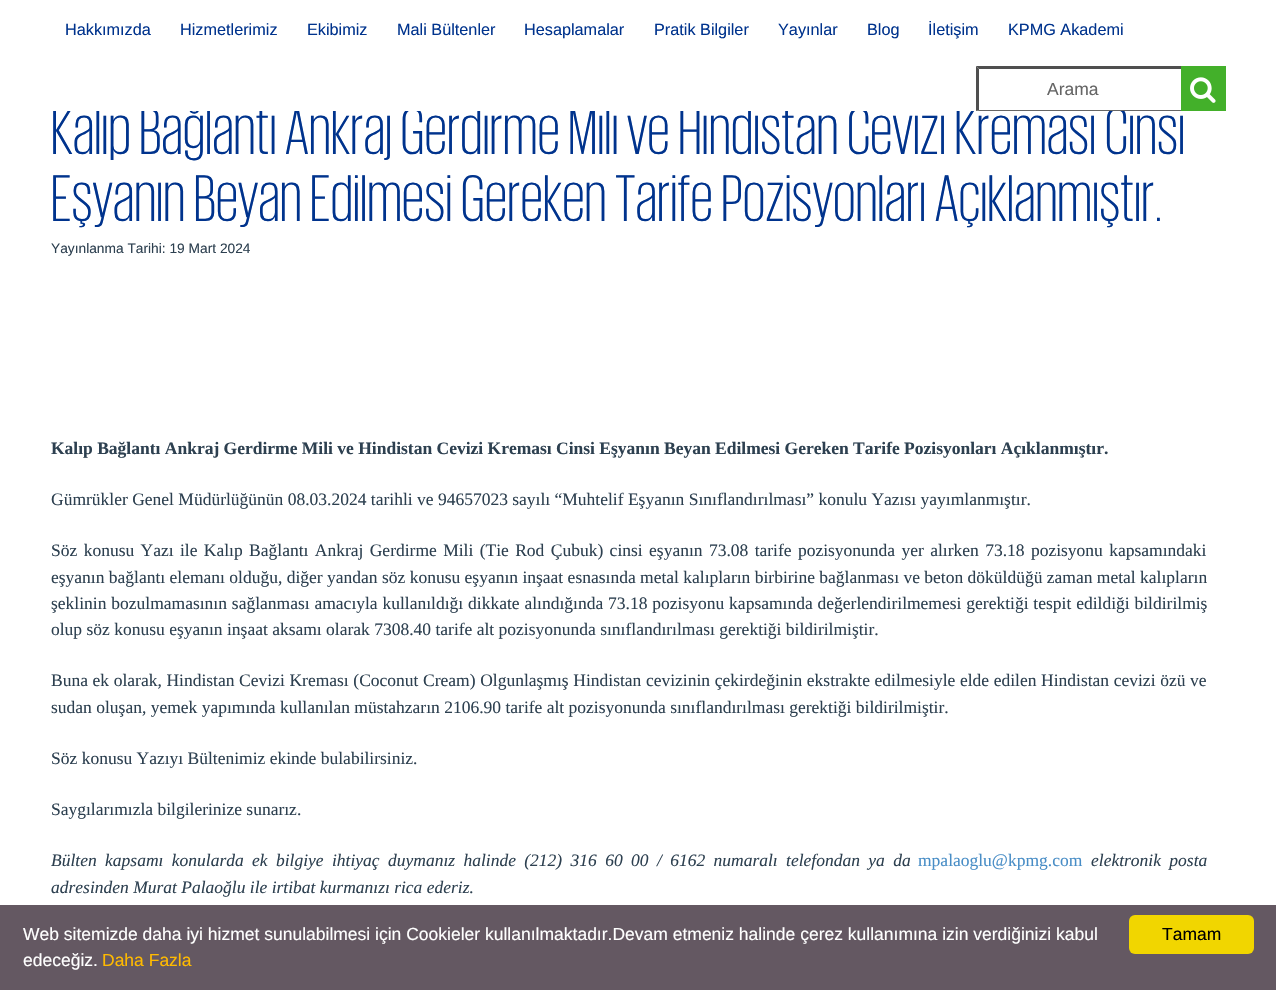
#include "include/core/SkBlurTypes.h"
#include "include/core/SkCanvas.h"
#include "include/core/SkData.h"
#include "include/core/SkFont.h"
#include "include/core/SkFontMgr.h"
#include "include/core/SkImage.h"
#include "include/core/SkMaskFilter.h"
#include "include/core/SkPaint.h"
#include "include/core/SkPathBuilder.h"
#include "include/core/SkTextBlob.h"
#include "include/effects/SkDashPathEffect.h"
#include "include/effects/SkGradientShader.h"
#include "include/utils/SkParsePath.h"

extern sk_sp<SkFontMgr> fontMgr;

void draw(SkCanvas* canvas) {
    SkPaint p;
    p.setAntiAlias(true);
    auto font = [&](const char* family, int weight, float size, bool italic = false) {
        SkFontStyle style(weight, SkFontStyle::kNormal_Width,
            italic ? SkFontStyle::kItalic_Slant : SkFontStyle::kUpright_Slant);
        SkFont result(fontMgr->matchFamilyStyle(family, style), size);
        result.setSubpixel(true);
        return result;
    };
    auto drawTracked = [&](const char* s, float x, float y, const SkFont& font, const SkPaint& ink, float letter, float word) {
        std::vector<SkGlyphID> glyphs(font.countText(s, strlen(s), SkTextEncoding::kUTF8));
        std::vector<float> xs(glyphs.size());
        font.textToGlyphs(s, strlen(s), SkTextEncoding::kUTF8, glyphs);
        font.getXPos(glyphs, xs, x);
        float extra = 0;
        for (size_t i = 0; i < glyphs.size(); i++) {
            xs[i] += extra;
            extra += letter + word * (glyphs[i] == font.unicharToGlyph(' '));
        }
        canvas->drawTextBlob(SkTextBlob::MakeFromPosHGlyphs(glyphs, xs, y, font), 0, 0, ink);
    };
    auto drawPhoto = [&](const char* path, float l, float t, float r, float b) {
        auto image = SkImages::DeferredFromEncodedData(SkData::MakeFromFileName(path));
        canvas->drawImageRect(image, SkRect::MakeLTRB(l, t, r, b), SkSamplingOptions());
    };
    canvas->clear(0xFFFFFFFF);
    auto font1 = font("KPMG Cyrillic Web", 300, 67.5f);
    p.setColor(0xFF00338D);
    canvas->drawString("Kalıp Bağlantı Ankraj Gerdirme Mili ve Hindistan Cevizi Kreması Cinsi", 51, 154, font1, p);
    p.setColor(0xFFFFFFFF);
    canvas->drawRect(SkRect::MakeLTRB(52, 107, 1183, 111), p);
    auto font2 = font("Liberation Sans", 400, 16.25f);
    p.setColor(0xFF00338D);
    {
        const struct { const char* s; float x, y; } items[] = {
            {"Hakkımızda", 65, 35},
            {"Hizmetlerimiz", 180, 35},
            {"Ekibimiz", 307, 35},
            {"Mali Bültenler", 397, 35},
            {"Hesaplamalar", 524, 35},
            {"Pratik Bilgiler", 654, 35},
            {"Yayınlar", 778, 35},
            {"Blog", 867, 35},
            {"İletişim", 928, 35},
            {"KPMG Akademi", 1008, 35},
        };
        for (auto [s, x, y] : items) {
            canvas->drawString(s, x, y, font2, p);
        }
    }
    p.setColor(0xFF4F4F4F);
    canvas->drawPath(SkPathBuilder().moveTo(976, 66).lineTo(1226, 66).lineTo(1224, 69).lineTo(979, 69).close().detach(), p);
    p.setColor(0xFF666666);
    canvas->drawPath(SkPathBuilder().moveTo(1226, 111).lineTo(976, 111).lineTo(979, 110).lineTo(1224, 110).close().detach(), p);
    p.setColor(0xFF4F4F4F);
    canvas->drawPath(SkPathBuilder().moveTo(976, 111).lineTo(976, 66).lineTo(979, 69).lineTo(979, 110).close().detach(), p);
    auto font3 = font("Liberation Sans", 400, 17.5f);
    p.setColor(0xFF666666);
    canvas->drawString("Arama", 1047, 95, font3, p);
    p.setColor(0xFF43B02A);
    canvas->drawRect(SkRect::MakeLTRB(1181, 66, 1226, 111), p);
    drawPhoto("media/1.png", 1190, 77, 1216, 103);
    p.setColor(0xFF00338D);
    canvas->drawString("Eşyanın Beyan Edilmesi Gereken Tarife Pozisyonları Açıklanmıştır.", 51, 221, font1, p);
    auto font4 = font("Liberation Sans", 400, 13.75f);
    p.setColor(0xFF2D4050);
    canvas->drawString("Yayınlanma Tarihi: 19 Mart 2024", 51, 253, font4, p);
    auto font5 = font("Liberation Serif", 700, 17.5f);
    canvas->drawString("Kalıp Bağlantı Ankraj Gerdirme Mili ve Hindistan Cevizi Kreması Cinsi Eşyanın Beyan Edilmesi Gereken Tarife Pozisyonları Açıklanmıştır.", 51, 454, font5, p);
    auto font6 = font("Liberation Serif", 400, 17.5f);
    canvas->drawString("Gümrükler Genel Müdürlüğünün 08.03.2024 tarihli ve 94657023 sayılı “Muhtelif Eşyanın Sınıflandırılması” konulu Yazısı yayımlanmıştır.", 51, 505, font6, p);
    drawTracked("Söz konusu Yazı ile Kalıp Bağlantı Ankraj Gerdirme Mili (Tie Rod Çubuk) cinsi eşyanın 73.08 tarife pozisyonunda yer alırken 73.18 pozisyonu kapsamındaki", 51, 556, font6, p, 0, 2);
    canvas->drawString("eşyanın bağlantı elemanı olduğu, diğer yandan söz konusu eşyanın inşaat esnasında metal kalıpların birbirine bağlanması ve beton döküldüğü zaman metal kalıpların", 51, 583, font6, p);
    drawTracked("şeklinin bozulmamasının sağlanması amacıyla kullanıldığı dikkate alındığında 73.18 pozisyonu kapsamında değerlendirilmemesi gerektiği tespit edildiği bildirilmiş", 51, 609, font6, p, 0, 0.5f);
    canvas->drawString("olup söz konusu eşyanın inşaat aksamı olarak 7308.40 tarife alt pozisyonunda sınıflandırılması gerektiği bildirilmiştir.", 51, 635, font6, p);
    drawTracked("Buna ek olarak, Hindistan Cevizi Kreması (Coconut Cream) Olgunlaşmış Hindistan cevizinin çekirdeğinin ekstrakte edilmesiyle elde edilen Hindistan cevizi özü ve", 51, 686, font6, p, 0, 0.25f);
    {
        const struct { const char* s; float x, y; } items[] = {
            {"sudan oluşan, yemek yapımında kullanılan müstahzarın 2106.90 tarife alt pozisyonunda sınıflandırılması gerektiği bildirilmiştir.", 51, 713},
            {"Söz konusu Yazıyı Bültenimiz ekinde bulabilirsiniz.", 51, 764},
            {"Saygılarımızla bilgilerinize sunarız.", 51, 815},
        };
        for (auto [s, x, y] : items) {
            canvas->drawString(s, x, y, font6, p);
        }
    }
    auto font7 = font("Liberation Serif", 400, 17.5f, true);
    drawTracked("Bülten kapsamı konularda ek bilgiye ihtiyaç duymanız halinde (212) 316 60 00 / 6162 numaralı telefondan ya da", 51, 866, font7, p, 0, 4);
    p.setColor(0xFF488DC6);
    canvas->drawString("mpalaoglu@kpmg.com", 918, 866, font6, p);
    p.setColor(0xFF2D4050);
    drawTracked("elektronik posta", 1091, 866, font7, p, 0, 4);
    canvas->drawString("adresinden Murat Palaoğlu ile irtibat kurmanızı rica ederiz.", 51, 893, font7, p);
    p.setColor(0xFF645862);
    canvas->drawRect(SkRect::MakeLTRB(0, 905, 1276, 990), p);
    p.setColor(0xFFFFFFFF);
    canvas->drawString("Web sitemizde daha iyi hizmet sunulabilmesi için Cookieler kullanılmaktadır.Devam etmeniz halinde çerez kullanımına izin verdiğinizi kabul", 23, 940, font3, p);
    canvas->drawString("edeceğiz.", 23, 966, font3, p);
    p.setColor(0xFFFFBA00);
    canvas->drawString("Daha Fazla", 102, 966, font3, p);
    p.setColor(0xFFF1D600);
    canvas->drawRoundRect(SkRect::MakeLTRB(1129, 915, 1254, 954), 6, 6, p);
    p.setColor(0xFF000000);
    canvas->drawString("Tamam", 1162, 940, font3, p);
}
